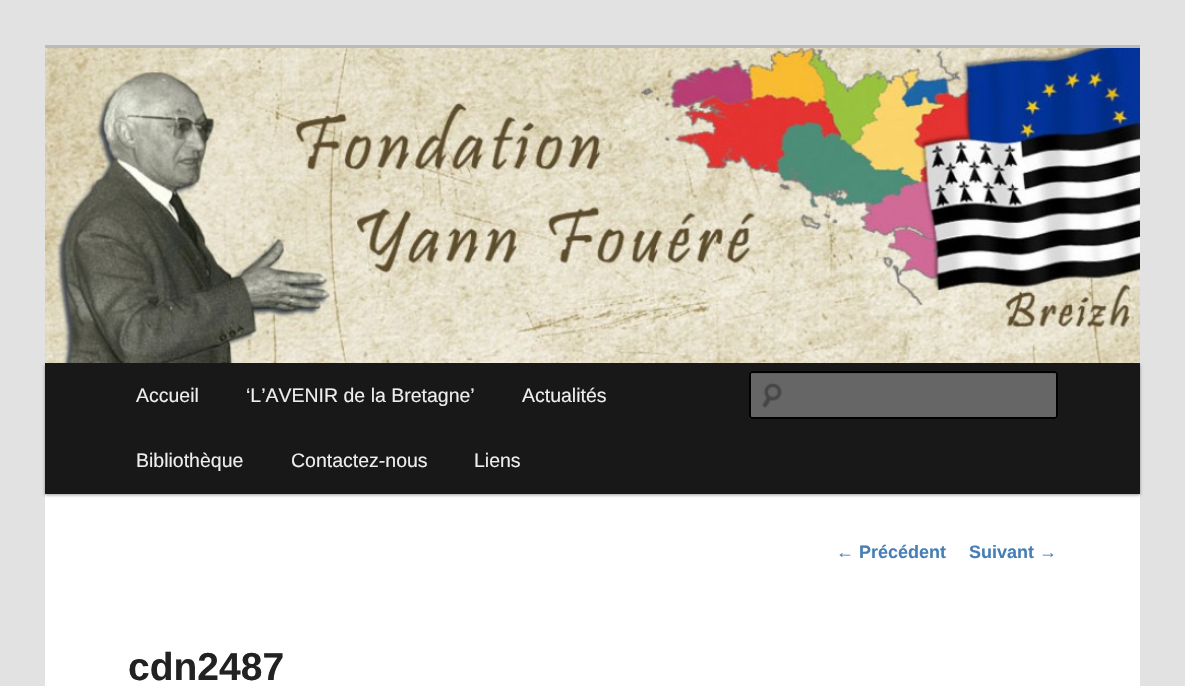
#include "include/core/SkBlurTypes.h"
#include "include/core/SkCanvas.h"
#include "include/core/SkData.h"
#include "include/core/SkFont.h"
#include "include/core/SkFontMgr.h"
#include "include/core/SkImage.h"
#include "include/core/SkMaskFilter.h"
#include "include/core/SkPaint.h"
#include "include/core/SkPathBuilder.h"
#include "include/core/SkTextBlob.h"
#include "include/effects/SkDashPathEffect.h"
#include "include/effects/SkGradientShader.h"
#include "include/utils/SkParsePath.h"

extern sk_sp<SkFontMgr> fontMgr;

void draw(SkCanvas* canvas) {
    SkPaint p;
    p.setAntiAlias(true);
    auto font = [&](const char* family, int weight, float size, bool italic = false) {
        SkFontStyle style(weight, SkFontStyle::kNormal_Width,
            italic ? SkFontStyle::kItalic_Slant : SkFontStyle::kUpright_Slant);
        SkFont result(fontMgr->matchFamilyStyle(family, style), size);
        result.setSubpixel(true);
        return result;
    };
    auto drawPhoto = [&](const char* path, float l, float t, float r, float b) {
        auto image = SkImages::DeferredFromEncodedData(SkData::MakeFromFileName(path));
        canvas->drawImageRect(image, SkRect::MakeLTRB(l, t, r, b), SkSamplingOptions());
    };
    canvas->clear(0xFFE2E2E2);
    p.setColor(0xFFFFFFFF);
    canvas->drawRect(SkRect::MakeLTRB(45, 494, 1140, 686), p);
    p.setColor(0xFFBBBBBB);
    canvas->drawRect(SkRect::MakeLTRB(45, 45, 1140, 48), p);
    p.setColor(0x66000000);
    p.setMaskFilter(SkMaskFilter::MakeBlur(kNormal_SkBlurStyle, 1.5f));
    canvas->drawRect(SkRect::MakeLTRB(45, 365, 1140, 495), p);
    p.setMaskFilter(nullptr);
    drawPhoto("media/1.png", 45, 48, 1140, 363);
    p.setColor(0xFF181818);
    canvas->drawRect(SkRect::MakeLTRB(45, 363, 1140, 494), p);
    auto font1 = font("Liberation Sans", 400, 19.5f);
    p.setColor(0xFFEEEEEE);
    {
        const struct { const char* s; float x, y; } items[] = {
            {"Accueil", 136, 402},
            {"‘L’AVENIR de la Bretagne’", 246, 402},
            {"Actualités", 522, 402},
            {"Bibliothèque", 136, 467},
            {"Contactez-nous", 291, 467},
            {"Liens", 474, 467},
        };
        for (auto [s, x, y] : items) {
            canvas->drawString(s, x, y, font1, p);
        }
    }
    p.setColor(0xFF666666);
    canvas->drawRoundRect(SkRect::MakeLTRB(749, 371, 1058, 419), 3, 3, p);
    drawPhoto("media/2.png", 762, 383, 782, 408);
    p.setColor(0xFF5C5C5C);
    canvas->drawPath(SkPathBuilder().moveTo(752, 374).lineTo(1054, 374).cubicTo(1055, 374, 1056, 374, 1056, 375).lineTo(1056, 373).lineTo(1054, 372).lineTo(752, 372).cubicTo(750, 372, 750, 374, 750, 375).cubicTo(750, 374, 751, 374, 752, 374).close().detach(), p);
    p.setStyle(SkPaint::kStroke_Style);
    p.setStrokeWidth(2);
    p.setColor(0xFF000000);
    canvas->drawRoundRect(SkRect::MakeLTRB(750, 372, 1057, 418), 2, 2, p);
    auto font2 = font("Liberation Sans", 700, 18);
    p.setStyle(SkPaint::kFill_Style);
    p.setColor(0xFF467FB5);
    canvas->drawString("← Précédent", 836, 558, font2, p);
    canvas->drawString("Suivant →", 969, 558, font2, p);
    auto font3 = font("Liberation Sans", 700, 39);
    p.setColor(0xFF222222);
    canvas->drawString("cdn2487", 128, 680, font3, p);
}
